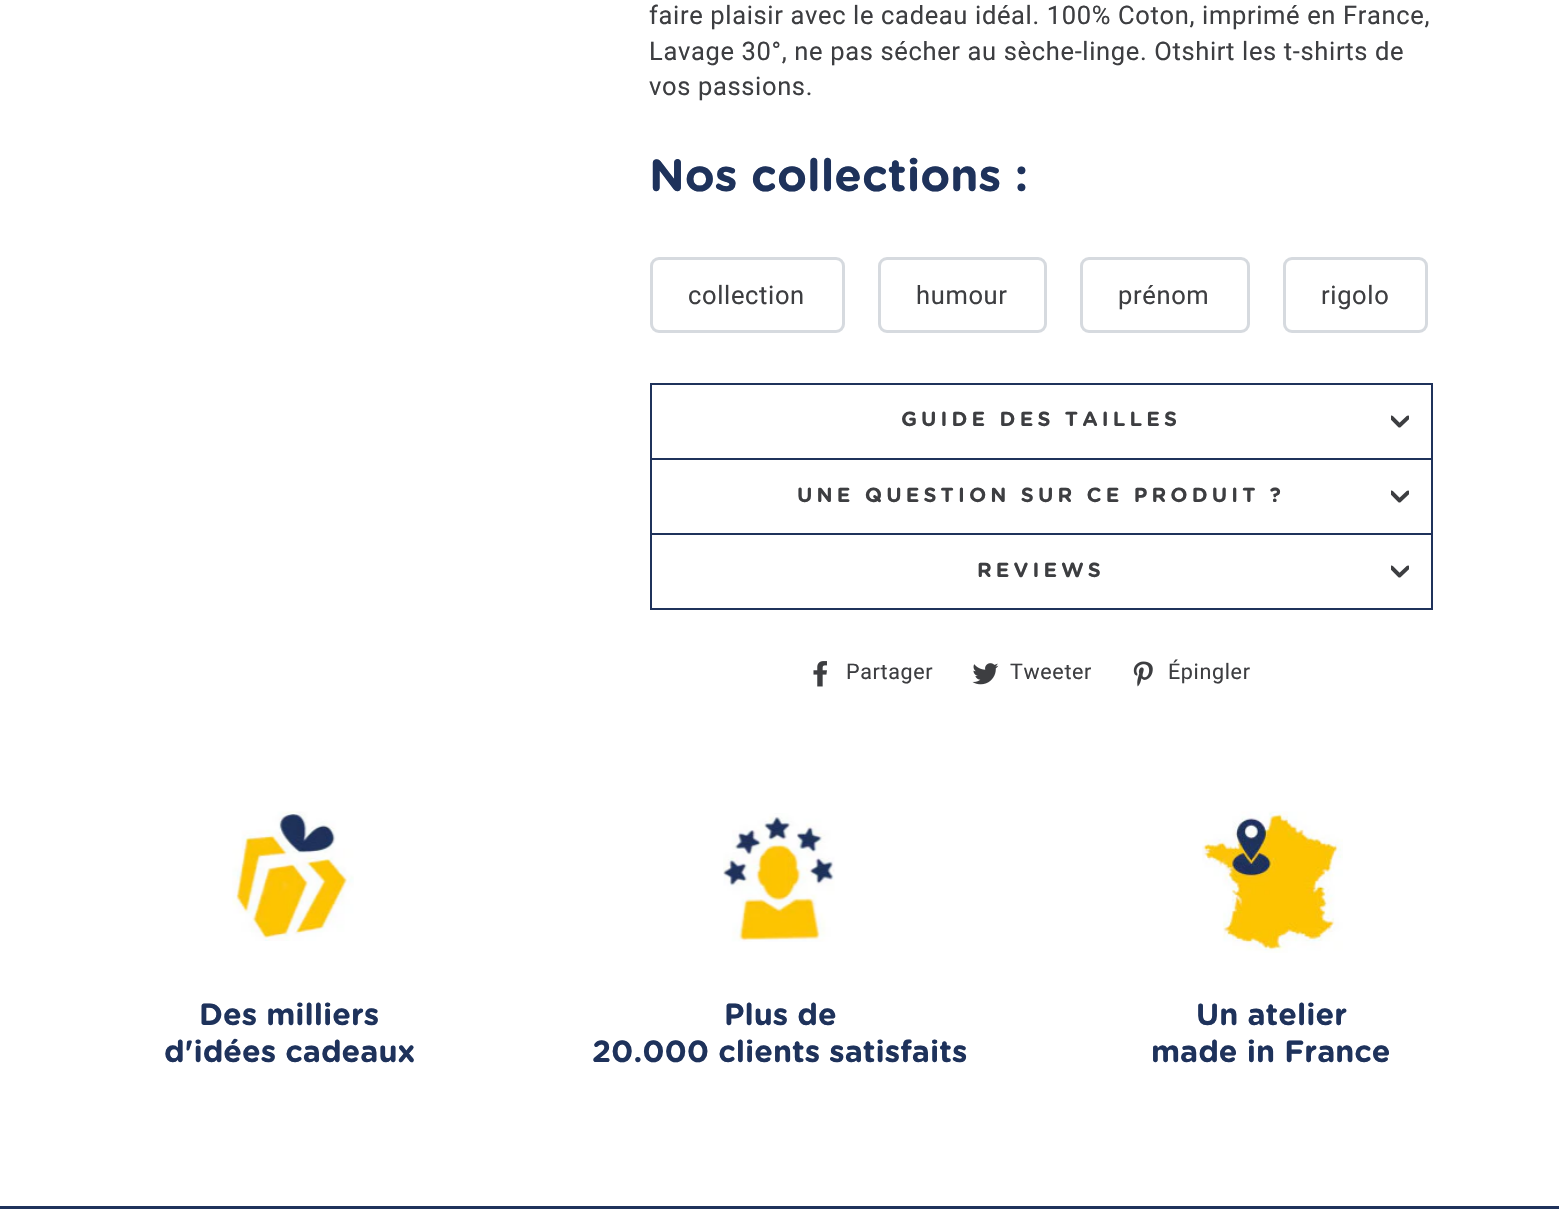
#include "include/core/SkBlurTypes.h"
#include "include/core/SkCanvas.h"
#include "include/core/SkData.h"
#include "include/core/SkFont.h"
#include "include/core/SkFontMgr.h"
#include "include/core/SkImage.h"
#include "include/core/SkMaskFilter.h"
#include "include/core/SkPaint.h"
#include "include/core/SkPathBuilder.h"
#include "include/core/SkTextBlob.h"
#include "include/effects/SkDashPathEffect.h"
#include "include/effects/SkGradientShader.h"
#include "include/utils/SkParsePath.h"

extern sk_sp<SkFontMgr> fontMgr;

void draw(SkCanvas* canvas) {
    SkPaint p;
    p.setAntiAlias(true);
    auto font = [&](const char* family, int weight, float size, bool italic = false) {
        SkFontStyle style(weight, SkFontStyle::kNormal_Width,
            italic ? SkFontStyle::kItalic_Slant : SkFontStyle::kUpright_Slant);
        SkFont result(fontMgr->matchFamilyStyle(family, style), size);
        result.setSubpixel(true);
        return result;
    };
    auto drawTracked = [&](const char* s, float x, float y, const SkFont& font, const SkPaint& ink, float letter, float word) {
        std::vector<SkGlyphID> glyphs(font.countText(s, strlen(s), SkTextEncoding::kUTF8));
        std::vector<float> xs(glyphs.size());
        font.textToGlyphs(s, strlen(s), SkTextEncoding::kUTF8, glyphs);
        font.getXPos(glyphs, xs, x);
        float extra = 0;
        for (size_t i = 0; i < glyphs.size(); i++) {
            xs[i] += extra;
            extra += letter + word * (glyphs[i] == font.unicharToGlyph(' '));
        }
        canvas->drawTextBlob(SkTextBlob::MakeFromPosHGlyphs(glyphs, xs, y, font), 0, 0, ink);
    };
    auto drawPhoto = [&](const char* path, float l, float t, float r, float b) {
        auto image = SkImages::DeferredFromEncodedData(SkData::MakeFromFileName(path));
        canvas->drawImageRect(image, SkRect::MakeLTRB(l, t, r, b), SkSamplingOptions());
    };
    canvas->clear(0xFFFFFFFF);
    auto font1 = font("Roboto", 400, 25.5f);
    p.setColor(0xFF3D3E41);
    {
        const struct { const char* s; float x, y; } items[] = {
            {"faire plaisir avec le cadeau idéal. 100% Coton, imprimé en France,", 649, 24},
            {"Lavage 30°, ne pas sécher au sèche-linge. Otshirt les t-shirts de", 649, 60},
            {"vos passions.", 649, 95},
        };
        for (auto [s, x, y] : items) {
            drawTracked(s, x, y, font1, p, 0.65f, 0);
        }
    }
    auto font2 = font("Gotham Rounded", 700, 45.25f);
    p.setColor(0xFF1E325B);
    canvas->drawString("Nos collections :", 649, 191, font2, p);
    p.setStyle(SkPaint::kStroke_Style);
    p.setStrokeWidth(3);
    p.setColor(0xFFD6DADF);
    canvas->drawRoundRect(SkRect::MakeLTRB(651.5f, 258.5f, 843.5f, 331.5f), 7.5f, 7.5f, p);
    p.setStyle(SkPaint::kFill_Style);
    p.setColor(0xFF3D3E41);
    drawTracked("collection", 688, 304, font1, p, 0.65f, 0);
    p.setStyle(SkPaint::kStroke_Style);
    p.setColor(0xFFD6DADF);
    canvas->drawRoundRect(SkRect::MakeLTRB(879.5f, 258.5f, 1045.5f, 331.5f), 7.5f, 7.5f, p);
    p.setStyle(SkPaint::kFill_Style);
    p.setColor(0xFF3D3E41);
    drawTracked("humour", 916, 304, font1, p, 0.65f, 0);
    p.setStyle(SkPaint::kStroke_Style);
    p.setColor(0xFFD6DADF);
    canvas->drawRoundRect(SkRect::MakeLTRB(1081.5f, 258.5f, 1248.5f, 331.5f), 7.5f, 7.5f, p);
    p.setStyle(SkPaint::kFill_Style);
    p.setColor(0xFF3D3E41);
    drawTracked("prénom", 1118, 304, font1, p, 0.65f, 0);
    p.setStyle(SkPaint::kStroke_Style);
    p.setColor(0xFFD6DADF);
    canvas->drawRoundRect(SkRect::MakeLTRB(1284.5f, 258.5f, 1426.5f, 331.5f), 7.5f, 7.5f, p);
    p.setStyle(SkPaint::kFill_Style);
    p.setColor(0xFF3D3E41);
    drawTracked("rigolo", 1321, 304, font1, p, 0.65f, 0);
    {
        const struct { float l, t, r, b; SkColor color; } items[] = {
            {650, 608, 1433, 610, 0xFF1F325B},
            {650, 383, 1433, 385, 0xFF1F325B},
            {1431, 383, 1433, 458, 0xFF1F325B},
            {650, 383, 652, 458, 0xFF1F325B},
        };
        for (auto [l, t, r, b, color] : items) {
            p.setColor(color);
            canvas->drawRect(SkRect::MakeLTRB(l, t, r, b), p);
        }
    }
    auto font3 = font("Gotham Rounded", 700, 20.4f);
    p.setColor(0xFF3D3E41);
    drawTracked("GUIDE DES TAILLES", 901, 426, font3, p, 4.1f, 0);
    canvas->save();
    canvas->clipRect(SkRect::MakeLTRB(1391, 413, 1409, 431));
    p.setStyle(SkPaint::kStroke_Style);
    p.setStrokeWidth(3.9f);
    p.setStrokeCap(SkPaint::kRound_Cap);
    p.setStrokeJoin(SkPaint::kRound_Join);
    canvas->drawPath(SkPathBuilder().moveTo(1391.5f, 417.5f).lineTo(1399.5f, 425.5f).lineTo(1408, 417.5f).detach(), p);
    canvas->restore();
    p.setStyle(SkPaint::kFill_Style);
    {
        const struct { float l, t, r, b; SkColor color; } items[] = {
            {650, 458, 1433, 460, 0xFF1F325B},
            {1431, 458, 1433, 533, 0xFF1F325B},
            {650, 458, 652, 533, 0xFF1F325B},
        };
        for (auto [l, t, r, b, color] : items) {
            p.setColor(color);
            canvas->drawRect(SkRect::MakeLTRB(l, t, r, b), p);
        }
    }
    p.setColor(0xFF3D3E41);
    drawTracked("UNE QUESTION SUR CE PRODUIT ?", 797, 502, font3, p, 4.1f, 0);
    canvas->save();
    canvas->clipRect(SkRect::MakeLTRB(1391, 488, 1409, 506));
    p.setStyle(SkPaint::kStroke_Style);
    canvas->drawPath(SkPathBuilder().moveTo(1391.5f, 492.5f).lineTo(1399.5f, 500.5f).lineTo(1408, 492.5f).detach(), p);
    canvas->restore();
    p.setStyle(SkPaint::kFill_Style);
    {
        const struct { float l, t, r, b; SkColor color; } items[] = {
            {650, 533, 1433, 535, 0xFF1F325B},
            {1431, 533, 1433, 608, 0xFF1F325B},
            {650, 533, 652, 608, 0xFF1F325B},
        };
        for (auto [l, t, r, b, color] : items) {
            p.setColor(color);
            canvas->drawRect(SkRect::MakeLTRB(l, t, r, b), p);
        }
    }
    p.setColor(0xFF3D3E41);
    drawTracked("REVIEWS", 977, 577, font3, p, 4.1f, 0);
    canvas->save();
    canvas->clipRect(SkRect::MakeLTRB(1391, 563, 1409, 581));
    p.setStyle(SkPaint::kStroke_Style);
    canvas->drawPath(SkPathBuilder().moveTo(1391.5f, 567.5f).lineTo(1399.5f, 575.5f).lineTo(1408, 567.5f).detach(), p);
    canvas->restore();
    drawPhoto("media/1.png", 813, 661, 827, 687);
    auto font4 = font("Roboto", 400, 21.5f);
    p.setStyle(SkPaint::kFill_Style);
    drawTracked("Partager", 846, 679, font4, p, 0.65f, 0);
    drawPhoto("media/2.png", 972, 663, 999, 685);
    drawTracked("Tweeter", 1010, 679, font4, p, 0.65f, 0);
    drawPhoto("media/3.png", 1133, 661, 1153, 687);
    drawTracked("Épingler", 1168, 679, font4, p, 0.65f, 0);
    drawPhoto("media/4.png", 232, 811, 354, 941);
    auto font5 = font("Gotham Rounded", 700, 30.6f);
    p.setColor(0xFF1E325B);
    canvas->drawString("Des milliers", 199, 1025, font5, p);
    canvas->drawString("d'idées cadeaux", 164, 1062, font5, p);
    drawPhoto("media/5.png", 723, 813, 835, 942);
    canvas->drawString("Plus de", 724, 1025, font5, p);
    canvas->drawString("20.000 clients satisfaits", 592, 1062, font5, p);
    drawPhoto("media/6.png", 1202, 811, 1343, 953);
    canvas->drawString("Un atelier", 1196, 1025, font5, p);
    canvas->drawString("made in France", 1151, 1062, font5, p);
    p.setColor(0xFF1F325B);
    canvas->drawRect(SkRect::MakeLTRB(0, 1206, 1559, 1209), p);
}
